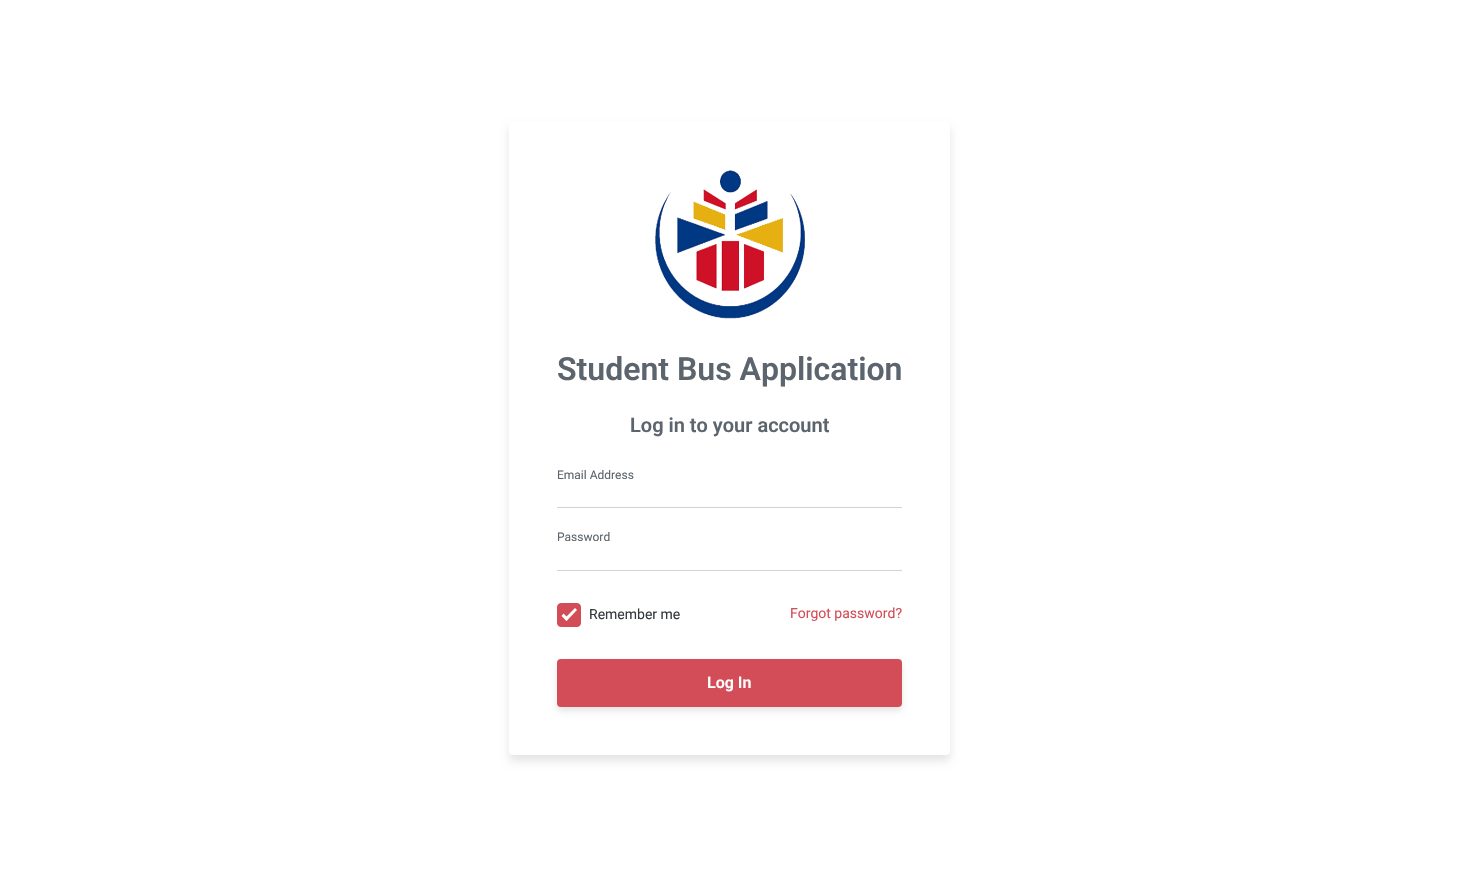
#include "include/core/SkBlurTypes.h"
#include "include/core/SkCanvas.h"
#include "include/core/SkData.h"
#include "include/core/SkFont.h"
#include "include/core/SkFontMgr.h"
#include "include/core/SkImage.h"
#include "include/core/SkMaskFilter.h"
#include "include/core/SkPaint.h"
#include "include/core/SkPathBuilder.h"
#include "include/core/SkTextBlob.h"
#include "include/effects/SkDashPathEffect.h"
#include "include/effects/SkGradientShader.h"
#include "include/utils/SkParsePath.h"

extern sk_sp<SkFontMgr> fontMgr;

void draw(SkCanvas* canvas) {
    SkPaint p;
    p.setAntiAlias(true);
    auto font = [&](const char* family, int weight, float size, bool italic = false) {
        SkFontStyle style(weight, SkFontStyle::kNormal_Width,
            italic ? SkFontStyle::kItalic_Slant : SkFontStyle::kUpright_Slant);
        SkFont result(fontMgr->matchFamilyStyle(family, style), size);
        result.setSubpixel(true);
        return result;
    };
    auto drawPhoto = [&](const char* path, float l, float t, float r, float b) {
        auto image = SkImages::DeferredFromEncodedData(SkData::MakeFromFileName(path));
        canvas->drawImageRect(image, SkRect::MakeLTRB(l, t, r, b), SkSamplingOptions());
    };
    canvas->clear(0xFFFFFFFF);
    p.setColor(0x1A000000);
    p.setMaskFilter(SkMaskFilter::MakeBlur(kNormal_SkBlurStyle, 4));
    canvas->drawRoundRect(SkRect::MakeLTRB(509, 127, 950, 761), 4, 4, p);
    p.setMaskFilter(nullptr);
    p.setColor(0xFFFFFFFF);
    canvas->drawRoundRect(SkRect::MakeLTRB(509, 121, 950, 755), 4, 4, p);
    drawPhoto("media/1.png", 655, 170, 805, 319);
    auto font1 = font("Roboto", 600, 32);
    p.setColor(0xFF5C656D);
    canvas->drawString("Student Bus Application", 557, 380, font1, p);
    auto font2 = font("Roboto", 600, 20);
    canvas->drawString("Log in to your account", 630, 432, font2, p);
    auto font3 = font("Roboto", 400, 12);
    canvas->drawString("Email Address", 557, 479, font3, p);
    p.setColor(0xFFCED4DA);
    canvas->drawRect(SkRect::MakeLTRB(557, 507, 902, 508), p);
    p.setColor(0xFF5C656D);
    canvas->drawString("Password", 557, 541, font3, p);
    p.setColor(0xFFCED4DA);
    canvas->drawRect(SkRect::MakeLTRB(557, 570, 902, 571), p);
    p.setColor(0xFFD24D57);
    canvas->drawRoundRect(SkRect::MakeLTRB(557.5f, 603.5f, 580.5f, 626.5f), 3.5f, 3.5f, p);
    p.setStyle(SkPaint::kStroke_Style);
    p.setStrokeWidth(1);
    canvas->drawRoundRect(SkRect::MakeLTRB(557.5f, 603.5f, 580.5f, 626.5f), 3.5f, 3.5f, p);
    p.setStyle(SkPaint::kFill_Style);
    p.setColor(0xFFFFFFFF);
    canvas->drawPath(SkPathBuilder().moveTo(564.5f, 618.5f).lineTo(575, 608).lineTo(577, 610).lineTo(566.5f, 621).close().detach(), p);
    canvas->drawPath(SkPathBuilder().moveTo(561.5f, 616).lineTo(563.5f, 613.5f).lineTo(568.5f, 618.5f).lineTo(566.5f, 621).close().detach(), p);
    auto font4 = font("Roboto", 400, 14);
    p.setColor(0xFF343A40);
    canvas->drawString("Remember me", 589, 619, font4, p);
    p.setColor(0xFFD24D57);
    canvas->drawString("Forgot password?", 790, 618, font4, p);
    p.setColor(0x1A000000);
    p.setMaskFilter(SkMaskFilter::MakeBlur(kNormal_SkBlurStyle, 3));
    canvas->drawRoundRect(SkRect::MakeLTRB(557, 663, 902, 711), 4, 4, p);
    p.setMaskFilter(nullptr);
    p.setColor(0xFFD24D57);
    canvas->drawRoundRect(SkRect::MakeLTRB(557, 659, 902, 707), 4, 4, p);
    auto font5 = font("Roboto", 600, 16);
    p.setColor(0xFFFFFFFF);
    canvas->drawString("Log In", 707, 688, font5, p);
}
